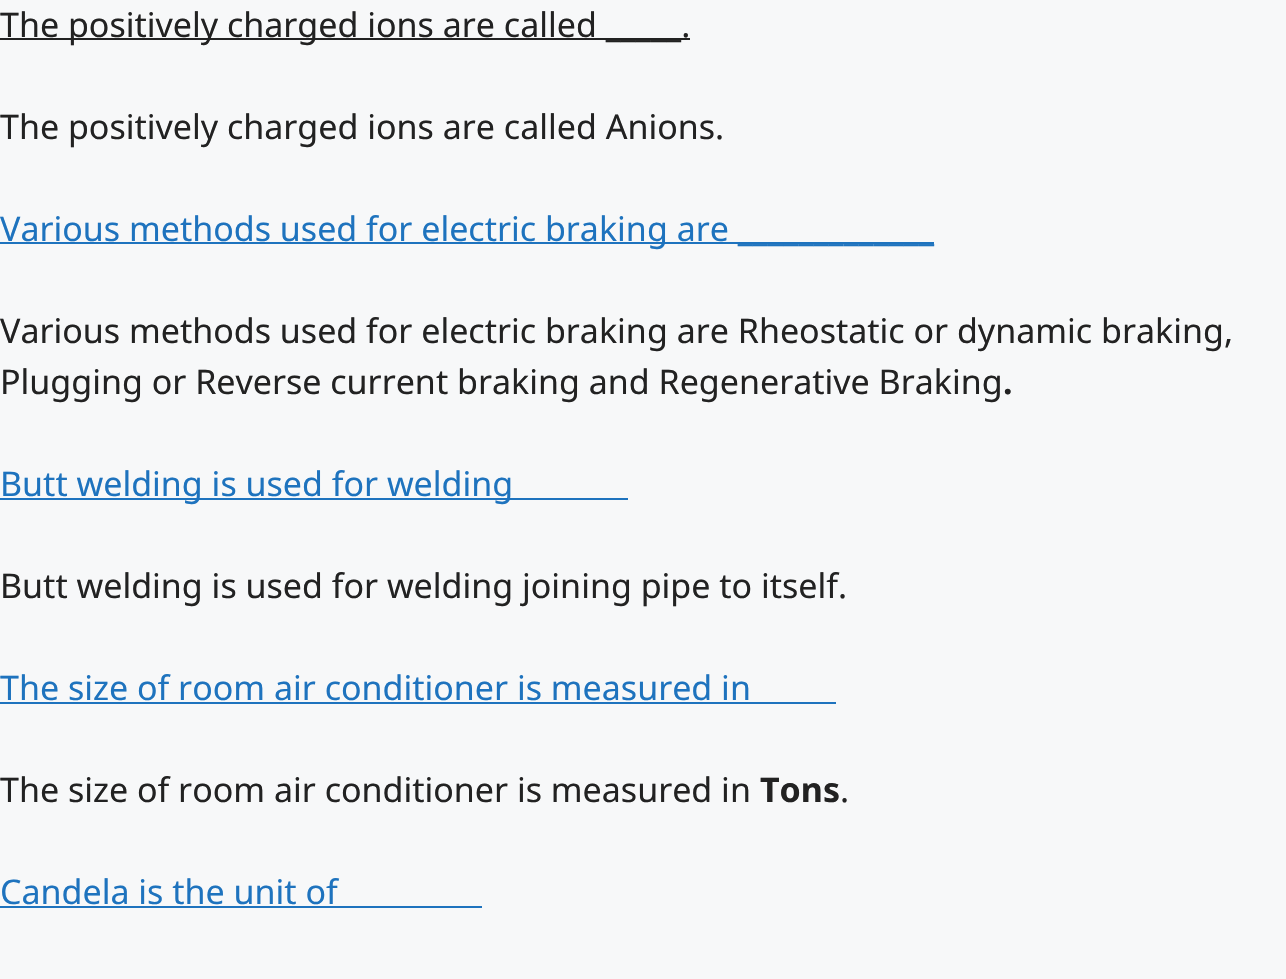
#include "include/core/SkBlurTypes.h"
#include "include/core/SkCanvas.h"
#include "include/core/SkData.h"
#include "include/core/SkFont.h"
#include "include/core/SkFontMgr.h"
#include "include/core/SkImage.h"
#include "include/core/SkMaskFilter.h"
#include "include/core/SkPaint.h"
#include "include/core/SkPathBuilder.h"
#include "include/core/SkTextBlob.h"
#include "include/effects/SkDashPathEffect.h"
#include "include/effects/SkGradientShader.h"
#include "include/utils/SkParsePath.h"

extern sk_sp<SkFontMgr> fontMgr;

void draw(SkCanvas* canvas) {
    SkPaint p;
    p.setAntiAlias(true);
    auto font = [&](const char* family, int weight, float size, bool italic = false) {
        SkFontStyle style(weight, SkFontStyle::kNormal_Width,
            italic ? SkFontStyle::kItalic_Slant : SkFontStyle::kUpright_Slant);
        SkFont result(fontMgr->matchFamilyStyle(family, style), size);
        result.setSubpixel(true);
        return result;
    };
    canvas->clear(0xFFF7F8F9);
    p.setColor(0xFF222222);
    canvas->drawRect(SkRect::MakeLTRB(0, 38, 690, 40), p);
    auto font1 = font("Noto Sans", 400, 34);
    canvas->drawString("The positively charged ions are called _____.", 0, 37, font1, p);
    canvas->drawString("The positively charged ions are called Anions.", 0, 139, font1, p);
    p.setColor(0xFF1E73BE);
    canvas->drawRect(SkRect::MakeLTRB(0, 242, 934, 244), p);
    canvas->drawString("Various methods used for electric braking are _____________", 0, 241, font1, p);
    p.setColor(0xFF222222);
    canvas->drawString("Various methods used for electric braking are Rheostatic or dynamic braking,", 0, 343, font1, p);
    canvas->drawString("Plugging or Reverse current braking and Regenerative Braking", 0, 394, font1, p);
    auto font2 = font("Noto Sans", 700, 34);
    canvas->drawString(".", 1003, 394, font2, p);
    p.setColor(0xFF1E73BE);
    canvas->drawRect(SkRect::MakeLTRB(0, 498, 628, 500), p);
    canvas->drawString("Butt welding is used for welding", 0, 496, font1, p);
    p.setColor(0xFF222222);
    canvas->drawString("Butt welding is used for welding joining pipe to itself.", 0, 598, font1, p);
    p.setColor(0xFF1E73BE);
    canvas->drawString("The size of room air conditioner is measured in", 0, 700, font1, p);
    canvas->drawRect(SkRect::MakeLTRB(0, 702, 836, 704), p);
    p.setColor(0xFF222222);
    canvas->drawString("The size of room air conditioner is measured in", 0, 802, font1, p);
    canvas->drawString("Tons", 760, 802, font2, p);
    canvas->drawString(".", 840, 802, font1, p);
    p.setColor(0xFF1E73BE);
    canvas->drawString("Candela is the unit of", 0, 904, font1, p);
    canvas->drawRect(SkRect::MakeLTRB(0, 906, 482, 908), p);
}
